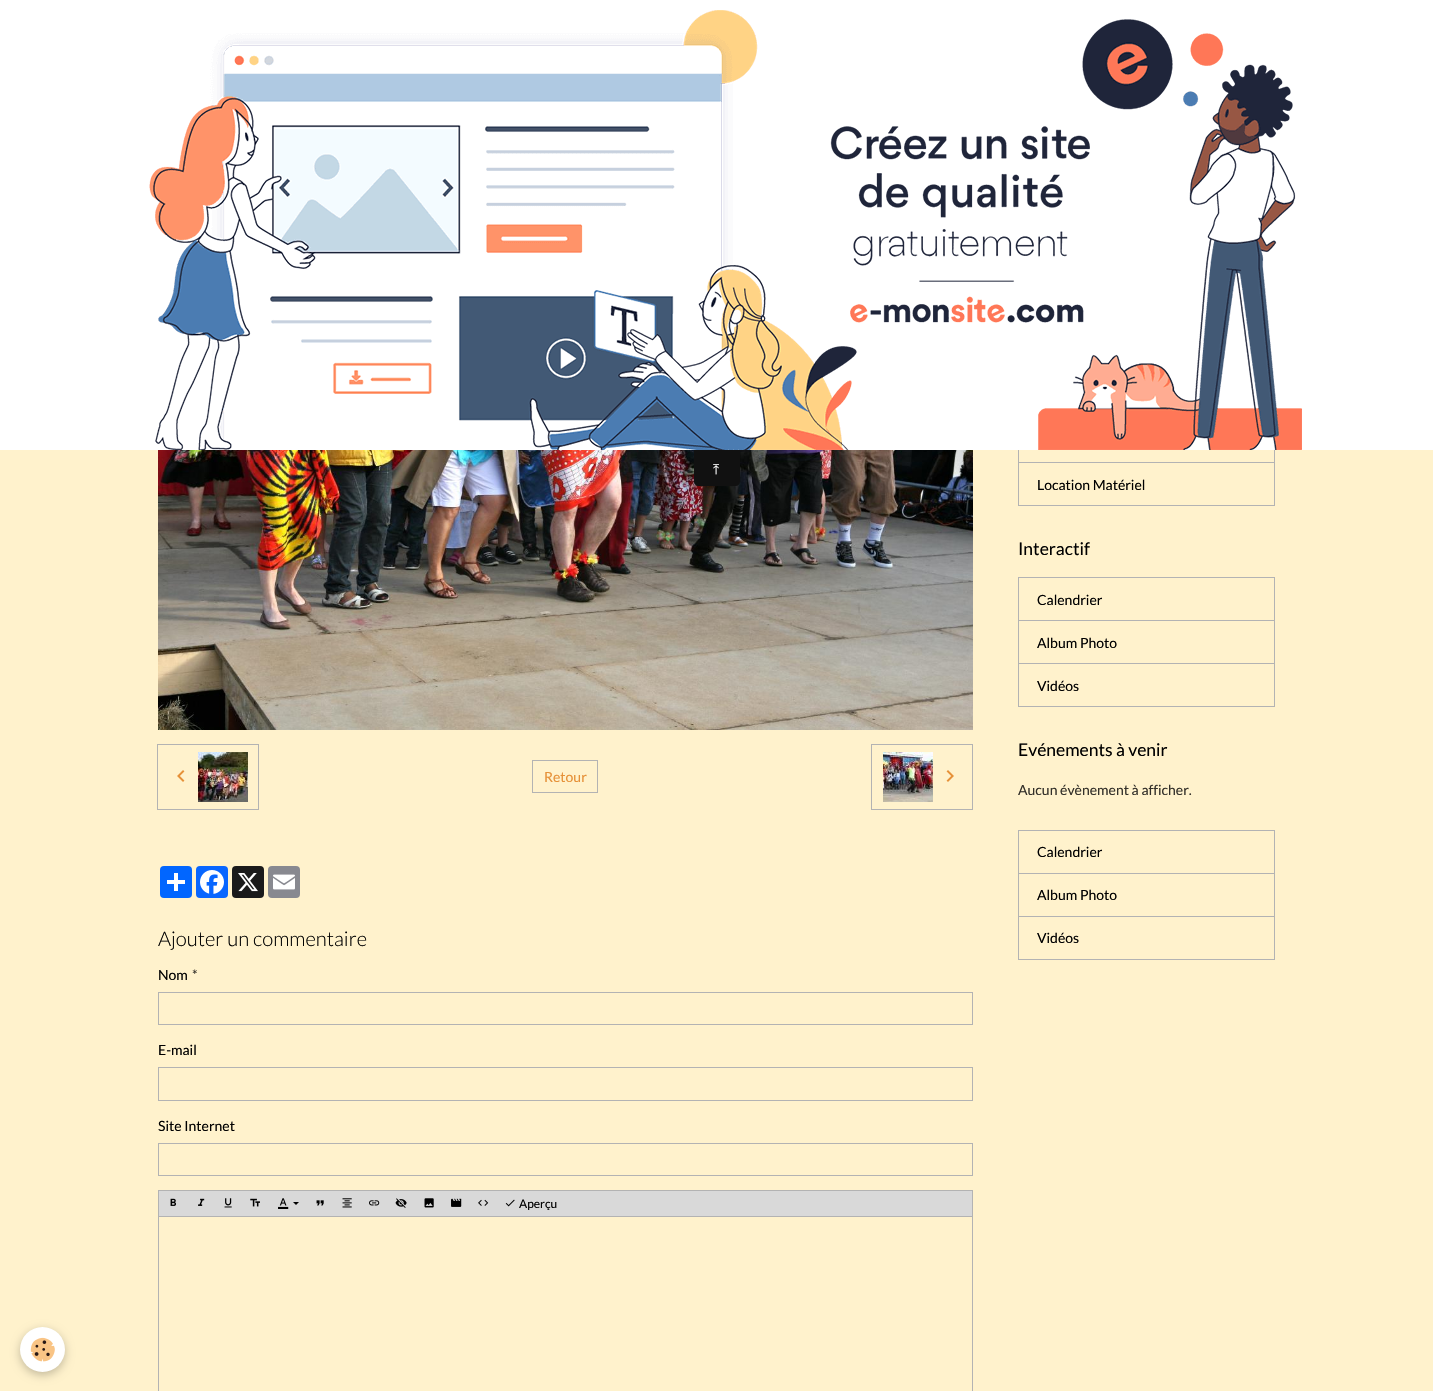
#include "include/core/SkBlurTypes.h"
#include "include/core/SkCanvas.h"
#include "include/core/SkData.h"
#include "include/core/SkFont.h"
#include "include/core/SkFontMgr.h"
#include "include/core/SkImage.h"
#include "include/core/SkMaskFilter.h"
#include "include/core/SkPaint.h"
#include "include/core/SkPathBuilder.h"
#include "include/core/SkTextBlob.h"
#include "include/effects/SkDashPathEffect.h"
#include "include/effects/SkGradientShader.h"
#include "include/utils/SkParsePath.h"

extern sk_sp<SkFontMgr> fontMgr;

void draw(SkCanvas* canvas) {
    SkPaint p;
    p.setAntiAlias(true);
    auto font = [&](const char* family, int weight, float size, bool italic = false) {
        SkFontStyle style(weight, SkFontStyle::kNormal_Width,
            italic ? SkFontStyle::kItalic_Slant : SkFontStyle::kUpright_Slant);
        SkFont result(fontMgr->matchFamilyStyle(family, style), size);
        result.setSubpixel(true);
        return result;
    };
    auto drawPhoto = [&](const char* path, float l, float t, float r, float b) {
        auto image = SkImages::DeferredFromEncodedData(SkData::MakeFromFileName(path));
        canvas->drawImageRect(image, SkRect::MakeLTRB(l, t, r, b), SkSamplingOptions());
    };
    canvas->clear(0xFFFFF2CC);
    p.setStyle(SkPaint::kStroke_Style);
    p.setStrokeWidth(1);
    p.setColor(0xFFB3B3B3);
    canvas->drawRect(SkRect::MakeLTRB(1018.5f, 419.5f, 1274.5f, 462.5f), p);
    p.setStyle(SkPaint::kFill_Style);
    p.setColor(0xFFFFFFFF);
    canvas->drawRect(SkRect::MakeLTRB(0, 0, 1433, 450), p);
    drawPhoto("media/1.png", 149, 10, 1302, 450);
    drawPhoto("media/2.png", 158, 450, 973, 730);
    p.setColor(0xFF111111);
    canvas->drawPath(SkPathBuilder().moveTo(694, 450).lineTo(740, 450).lineTo(740, 482).cubicTo(740, 484, 738, 486, 736, 486).lineTo(698, 486).cubicTo(696, 486, 694, 484, 694, 482).close().detach(), p);
    auto font1 = font("FreeSerif", 400, 14);
    p.setColor(0xFFFFFFFF);
    canvas->drawString("⤒", 713, 474, font1, p);
    p.setStyle(SkPaint::kStroke_Style);
    p.setColor(0xFFB3B3B3);
    canvas->drawRect(SkRect::MakeLTRB(1018.5f, 462.5f, 1274.5f, 505.5f), p);
    auto font2 = font("Lato", 400, 14);
    p.setStyle(SkPaint::kFill_Style);
    p.setColor(0xFF000000);
    canvas->drawString("Location Matériel", 1037, 490, font2, p);
    auto font3 = font("Lato", 400, 17.5f);
    canvas->drawString("Interactif", 1018, 555, font3, p);
    p.setStyle(SkPaint::kStroke_Style);
    p.setColor(0xFFB3B3B3);
    canvas->drawRect(SkRect::MakeLTRB(1018.5f, 577.5f, 1274.5f, 620.5f), p);
    p.setStyle(SkPaint::kFill_Style);
    p.setColor(0xFF000000);
    canvas->drawString("Calendrier", 1037, 605, font2, p);
    p.setStyle(SkPaint::kStroke_Style);
    p.setColor(0xFFB3B3B3);
    canvas->drawRect(SkRect::MakeLTRB(1018.5f, 620.5f, 1274.5f, 663.5f), p);
    p.setStyle(SkPaint::kFill_Style);
    p.setColor(0xFF000000);
    canvas->drawString("Album Photo", 1037, 648, font2, p);
    p.setStyle(SkPaint::kStroke_Style);
    p.setColor(0xFFB3B3B3);
    canvas->drawRect(SkRect::MakeLTRB(1018.5f, 663.5f, 1274.5f, 706.5f), p);
    p.setStyle(SkPaint::kFill_Style);
    p.setColor(0xFF000000);
    canvas->drawString("Vidéos", 1037, 691, font2, p);
    canvas->drawString("Evénements à venir", 1018, 756, font3, p);
    p.setColor(0xFF333029);
    canvas->drawString("Aucun évènement à afficher.", 1018, 795, font2, p);
    p.setStyle(SkPaint::kStroke_Style);
    p.setColor(0xFFB3B3B3);
    canvas->drawRect(SkRect::MakeLTRB(1018.5f, 830.5f, 1274.5f, 873.5f), p);
    p.setStyle(SkPaint::kFill_Style);
    p.setColor(0xFF000000);
    canvas->drawString("Calendrier", 1037, 857, font2, p);
    p.setStyle(SkPaint::kStroke_Style);
    p.setColor(0xFFB3B3B3);
    canvas->drawRect(SkRect::MakeLTRB(1018.5f, 873.5f, 1274.5f, 916.5f), p);
    p.setStyle(SkPaint::kFill_Style);
    p.setColor(0xFF000000);
    canvas->drawString("Album Photo", 1037, 900, font2, p);
    p.setStyle(SkPaint::kStroke_Style);
    p.setColor(0xFFB3B3B3);
    canvas->drawRect(SkRect::MakeLTRB(1018.5f, 916.5f, 1274.5f, 959.5f), p);
    p.setStyle(SkPaint::kFill_Style);
    p.setColor(0xFF000000);
    canvas->drawString("Vidéos", 1037, 943, font2, p);
    p.setStyle(SkPaint::kStroke_Style);
    p.setColor(0xFFB3B3B3);
    canvas->drawRect(SkRect::MakeLTRB(157.5f, 744.5f, 258.5f, 809.5f), p);
    drawPhoto("media/3.png", 177, 770, 185, 782);
    drawPhoto("media/4.png", 198, 752, 248, 802);
    canvas->drawRect(SkRect::MakeLTRB(532.5f, 760.5f, 597.5f, 792.5f), p);
    p.setStyle(SkPaint::kFill_Style);
    p.setColor(0xFFE69138);
    canvas->drawString("Retour", 544, 782, font2, p);
    p.setStyle(SkPaint::kStroke_Style);
    p.setColor(0xFFB3B3B3);
    canvas->drawRect(SkRect::MakeLTRB(871.5f, 744.5f, 972.5f, 809.5f), p);
    drawPhoto("media/5.png", 883, 752, 933, 802);
    drawPhoto("media/6.png", 946, 770, 954, 782);
    p.setStyle(SkPaint::kFill_Style);
    p.setColor(0xFF0166FF);
    canvas->drawRoundRect(SkRect::MakeLTRB(160, 866, 192, 898), 4, 4, p);
    p.setColor(0xFFFFFFFF);
    canvas->drawRect(SkRect::MakeLTRB(174, 873, 178, 891), p);
    canvas->drawRect(SkRect::MakeLTRB(167, 880, 185, 884), p);
    p.setColor(0xFF0866FF);
    canvas->drawRoundRect(SkRect::MakeLTRB(196, 866, 228, 898), 4, 4, p);
    drawPhoto("media/7.png", 200, 870, 224, 894);
    p.setColor(0xFF1A1A1A);
    canvas->drawRoundRect(SkRect::MakeLTRB(232, 866, 264, 898), 4, 4, p);
    drawPhoto("media/8.png", 238, 873, 258, 892);
    p.setColor(0xFF888990);
    canvas->drawRoundRect(SkRect::MakeLTRB(268, 866, 300, 898), 4, 4, p);
    drawPhoto("media/9.png", 273, 874, 295, 890);
    auto font4 = font("Lato", 300, 20.25f);
    p.setColor(0xFF000000);
    canvas->drawString("Ajouter un commentaire", 158, 946, font4, p);
    canvas->drawString("Nom", 158, 980, font2, p);
    p.setColor(0xFF333029);
    canvas->drawString("*", 192, 980, font2, p);
    p.setStyle(SkPaint::kStroke_Style);
    p.setColor(0xFFB3B3B3);
    canvas->drawRect(SkRect::MakeLTRB(158.5f, 992.5f, 972.5f, 1024.5f), p);
    p.setStyle(SkPaint::kFill_Style);
    p.setColor(0xFF000000);
    canvas->drawString("E-mail", 158, 1055, font2, p);
    p.setStyle(SkPaint::kStroke_Style);
    p.setColor(0xFFB3B3B3);
    canvas->drawRect(SkRect::MakeLTRB(158.5f, 1067.5f, 972.5f, 1100.5f), p);
    p.setStyle(SkPaint::kFill_Style);
    p.setColor(0xFF000000);
    canvas->drawString("Site Internet", 158, 1131, font2, p);
    p.setStyle(SkPaint::kStroke_Style);
    p.setColor(0xFFB3B3B3);
    canvas->drawRect(SkRect::MakeLTRB(158.5f, 1143.5f, 972.5f, 1175.5f), p);
    p.setStyle(SkPaint::kFill_Style);
    p.setColor(0xFFD9D9D9);
    canvas->drawRect(SkRect::MakeLTRB(158.5f, 1190.5f, 972.5f, 1216.5f), p);
    p.setStyle(SkPaint::kStroke_Style);
    p.setColor(0xFFB3B3B3);
    canvas->drawRect(SkRect::MakeLTRB(158.5f, 1190.5f, 972.5f, 1216.5f), p);
    drawPhoto("media/10.png", 170, 1198, 176, 1206);
    drawPhoto("media/11.png", 198, 1198, 205, 1206);
    drawPhoto("media/12.png", 224, 1198, 232, 1208);
    drawPhoto("media/13.png", 250, 1198, 260, 1207);
    drawPhoto("media/14.png", 278, 1198, 289, 1209);
    p.setStyle(SkPaint::kFill_Style);
    p.setColor(0xFF000000);
    canvas->drawPath(SkPathBuilder().moveTo(293, 1202).lineTo(299, 1202).lineTo(296, 1205).close().detach(), p);
    drawPhoto("media/15.png", 316, 1200, 324, 1206);
    drawPhoto("media/16.png", 342, 1198, 352, 1208);
    drawPhoto("media/17.png", 369, 1200, 380, 1206);
    drawPhoto("media/18.png", 395, 1198, 407, 1208);
    drawPhoto("media/19.png", 424, 1198, 434, 1208);
    drawPhoto("media/20.png", 451, 1198, 462, 1207);
    drawPhoto("media/21.png", 478, 1199, 489, 1206);
    drawPhoto("media/22.png", 505, 1199, 515, 1207);
    auto font5 = font("Lato", 400, 12);
    canvas->drawString("Aperçu", 519, 1208, font5, p);
    p.setStyle(SkPaint::kStroke_Style);
    p.setColor(0xFFB3B3B3);
    canvas->drawRect(SkRect::MakeLTRB(158.5f, 1216.5f, 972.5f, 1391.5f), p);
    p.setStyle(SkPaint::kFill_Style);
    p.setColor(0x3D000000);
    p.setMaskFilter(SkMaskFilter::MakeBlur(kNormal_SkBlurStyle, 5));
    canvas->drawRoundRect(SkRect::MakeLTRB(20, 1330, 65, 1375), 22.5f, 22.5f, p);
    p.setMaskFilter(nullptr);
    p.setColor(0xFFFFFFFF);
    canvas->drawCircle(42.5f, 1349.5f, 22.5f, p);
    drawPhoto("media/23.png", 30, 1337, 55, 1362);
}
